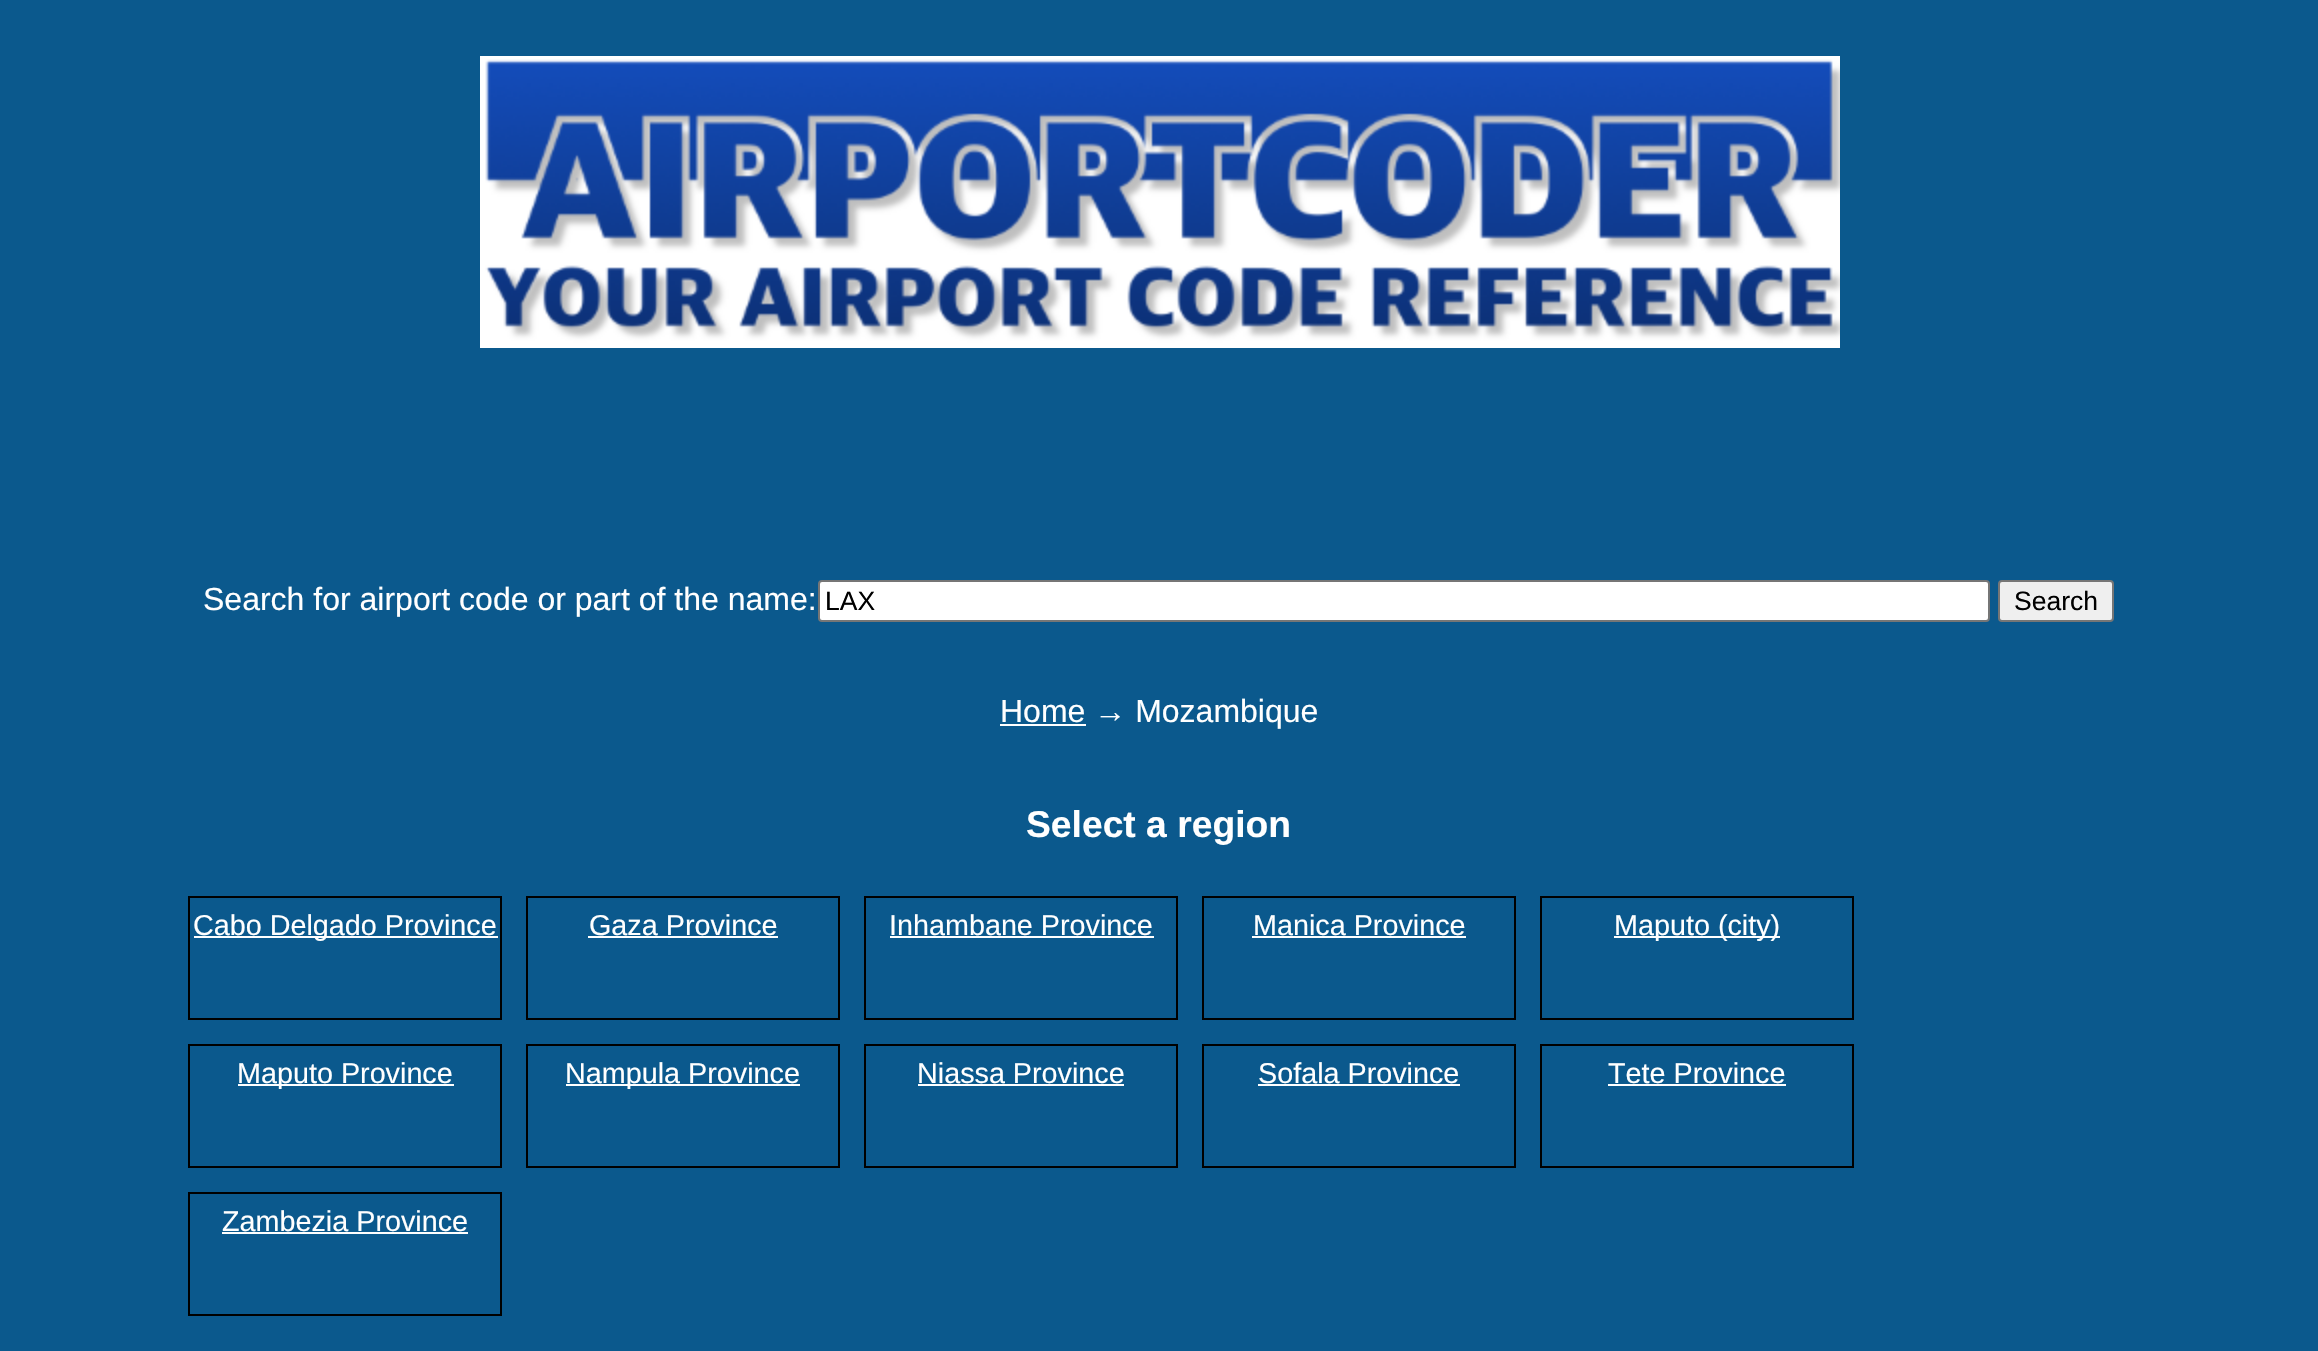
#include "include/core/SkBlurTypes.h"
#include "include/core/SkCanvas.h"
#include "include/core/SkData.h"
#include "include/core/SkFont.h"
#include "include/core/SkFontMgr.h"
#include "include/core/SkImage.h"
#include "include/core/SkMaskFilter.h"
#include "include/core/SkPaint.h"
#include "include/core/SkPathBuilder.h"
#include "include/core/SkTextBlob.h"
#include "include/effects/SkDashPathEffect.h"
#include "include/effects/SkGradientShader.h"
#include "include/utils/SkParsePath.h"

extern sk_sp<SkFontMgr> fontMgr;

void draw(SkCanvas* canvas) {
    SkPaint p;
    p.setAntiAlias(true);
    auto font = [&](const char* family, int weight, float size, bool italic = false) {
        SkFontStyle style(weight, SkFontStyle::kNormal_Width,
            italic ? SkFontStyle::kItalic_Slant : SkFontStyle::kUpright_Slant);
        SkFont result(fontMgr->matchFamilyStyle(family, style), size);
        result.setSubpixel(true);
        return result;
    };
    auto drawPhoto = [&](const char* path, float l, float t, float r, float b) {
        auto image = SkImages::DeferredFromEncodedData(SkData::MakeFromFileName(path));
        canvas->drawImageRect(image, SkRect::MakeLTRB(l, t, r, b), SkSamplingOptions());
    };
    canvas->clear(0xFF0B598D);
    drawPhoto("media/1.png", 480, 56, 1840, 348);
    auto font1 = font("Liberation Sans", 400, 32);
    p.setColor(0xFFFFFFFF);
    canvas->drawString("Search for airport code or part of the name:", 203, 610, font1, p);
    canvas->drawRoundRect(SkRect::MakeLTRB(819, 581, 1989, 621), 3, 3, p);
    p.setStyle(SkPaint::kStroke_Style);
    p.setStrokeWidth(2);
    p.setColor(0xFF767676);
    canvas->drawRoundRect(SkRect::MakeLTRB(819, 581, 1989, 621), 3, 3, p);
    auto font2 = font("Liberation Sans", 400, 26.5f);
    p.setStyle(SkPaint::kFill_Style);
    p.setColor(0xFF000000);
    canvas->drawString("LAX", 825, 610, font2, p);
    p.setColor(0xFFEFEFEF);
    canvas->drawRoundRect(SkRect::MakeLTRB(1999, 581, 2113, 621), 3, 3, p);
    p.setStyle(SkPaint::kStroke_Style);
    p.setColor(0xFF767676);
    canvas->drawRoundRect(SkRect::MakeLTRB(1999, 581, 2113, 621), 3, 3, p);
    p.setStyle(SkPaint::kFill_Style);
    p.setColor(0xFF000000);
    canvas->drawString("Search", 2014, 610, font2, p);
    p.setColor(0xFFFFFFFF);
    canvas->drawRect(SkRect::MakeLTRB(1000, 724, 1086, 726), p);
    canvas->drawString("Home → Mozambique", 1000, 722, font1, p);
    auto font3 = font("Liberation Sans", 700, 37.25f);
    canvas->drawString("Select a region", 1026, 837, font3, p);
    p.setStyle(SkPaint::kStroke_Style);
    p.setColor(0xFF000000);
    canvas->drawRect(SkRect::MakeLTRB(189, 897, 501, 1019), p);
    p.setStyle(SkPaint::kFill_Style);
    p.setColor(0xFFFFFFFF);
    canvas->drawRect(SkRect::MakeLTRB(194, 936, 498, 938), p);
    auto font4 = font("Liberation Sans", 400, 28.75f);
    canvas->drawString("Cabo Delgado Province", 193, 935, font4, p);
    p.setStyle(SkPaint::kStroke_Style);
    p.setColor(0xFF000000);
    canvas->drawRect(SkRect::MakeLTRB(527, 897, 839, 1019), p);
    p.setStyle(SkPaint::kFill_Style);
    p.setColor(0xFFFFFFFF);
    canvas->drawString("Gaza Province", 589, 935, font4, p);
    canvas->drawRect(SkRect::MakeLTRB(588, 936, 778, 938), p);
    p.setStyle(SkPaint::kStroke_Style);
    p.setColor(0xFF000000);
    canvas->drawRect(SkRect::MakeLTRB(865, 897, 1177, 1019), p);
    p.setStyle(SkPaint::kFill_Style);
    p.setColor(0xFFFFFFFF);
    canvas->drawString("Inhambane Province", 889, 935, font4, p);
    canvas->drawRect(SkRect::MakeLTRB(890, 936, 1154, 938), p);
    p.setStyle(SkPaint::kStroke_Style);
    p.setColor(0xFF000000);
    canvas->drawRect(SkRect::MakeLTRB(1203, 897, 1515, 1019), p);
    p.setStyle(SkPaint::kFill_Style);
    p.setColor(0xFFFFFFFF);
    canvas->drawString("Manica Province", 1253, 935, font4, p);
    canvas->drawRect(SkRect::MakeLTRB(1252, 936, 1466, 938), p);
    p.setStyle(SkPaint::kStroke_Style);
    p.setColor(0xFF000000);
    canvas->drawRect(SkRect::MakeLTRB(1541, 897, 1853, 1019), p);
    p.setStyle(SkPaint::kFill_Style);
    p.setColor(0xFFFFFFFF);
    canvas->drawRect(SkRect::MakeLTRB(1614, 936, 1780, 938), p);
    canvas->drawString("Maputo (city)", 1614, 935, font4, p);
    p.setStyle(SkPaint::kStroke_Style);
    p.setColor(0xFF000000);
    canvas->drawRect(SkRect::MakeLTRB(189, 1045, 501, 1167), p);
    p.setStyle(SkPaint::kFill_Style);
    p.setColor(0xFFFFFFFF);
    canvas->drawRect(SkRect::MakeLTRB(238, 1084, 454, 1086), p);
    canvas->drawString("Maputo Province", 237, 1083, font4, p);
    p.setStyle(SkPaint::kStroke_Style);
    p.setColor(0xFF000000);
    canvas->drawRect(SkRect::MakeLTRB(527, 1045, 839, 1167), p);
    p.setStyle(SkPaint::kFill_Style);
    p.setColor(0xFFFFFFFF);
    canvas->drawRect(SkRect::MakeLTRB(566, 1084, 800, 1086), p);
    canvas->drawString("Nampula Province", 565, 1083, font4, p);
    p.setStyle(SkPaint::kStroke_Style);
    p.setColor(0xFF000000);
    canvas->drawRect(SkRect::MakeLTRB(865, 1045, 1177, 1167), p);
    p.setStyle(SkPaint::kFill_Style);
    p.setColor(0xFFFFFFFF);
    canvas->drawString("Niassa Province", 917, 1083, font4, p);
    canvas->drawRect(SkRect::MakeLTRB(918, 1084, 1124, 1086), p);
    p.setStyle(SkPaint::kStroke_Style);
    p.setColor(0xFF000000);
    canvas->drawRect(SkRect::MakeLTRB(1203, 1045, 1515, 1167), p);
    p.setStyle(SkPaint::kFill_Style);
    p.setColor(0xFFFFFFFF);
    canvas->drawString("Sofala Province", 1258, 1083, font4, p);
    canvas->drawRect(SkRect::MakeLTRB(1258, 1084, 1460, 1086), p);
    p.setStyle(SkPaint::kStroke_Style);
    p.setColor(0xFF000000);
    canvas->drawRect(SkRect::MakeLTRB(1541, 1045, 1853, 1167), p);
    p.setStyle(SkPaint::kFill_Style);
    p.setColor(0xFFFFFFFF);
    canvas->drawString("Tete Province", 1608, 1083, font4, p);
    canvas->drawRect(SkRect::MakeLTRB(1608, 1084, 1786, 1086), p);
    p.setStyle(SkPaint::kStroke_Style);
    p.setColor(0xFF000000);
    canvas->drawRect(SkRect::MakeLTRB(189, 1193, 501, 1315), p);
    p.setStyle(SkPaint::kFill_Style);
    p.setColor(0xFFFFFFFF);
    canvas->drawString("Zambezia Province", 222, 1231, font4, p);
    canvas->drawRect(SkRect::MakeLTRB(222, 1232, 468, 1234), p);
}
